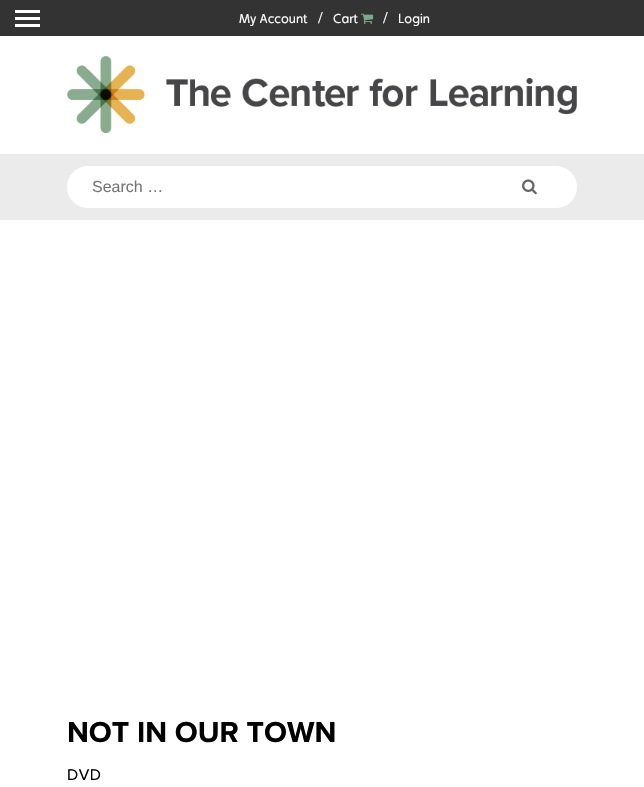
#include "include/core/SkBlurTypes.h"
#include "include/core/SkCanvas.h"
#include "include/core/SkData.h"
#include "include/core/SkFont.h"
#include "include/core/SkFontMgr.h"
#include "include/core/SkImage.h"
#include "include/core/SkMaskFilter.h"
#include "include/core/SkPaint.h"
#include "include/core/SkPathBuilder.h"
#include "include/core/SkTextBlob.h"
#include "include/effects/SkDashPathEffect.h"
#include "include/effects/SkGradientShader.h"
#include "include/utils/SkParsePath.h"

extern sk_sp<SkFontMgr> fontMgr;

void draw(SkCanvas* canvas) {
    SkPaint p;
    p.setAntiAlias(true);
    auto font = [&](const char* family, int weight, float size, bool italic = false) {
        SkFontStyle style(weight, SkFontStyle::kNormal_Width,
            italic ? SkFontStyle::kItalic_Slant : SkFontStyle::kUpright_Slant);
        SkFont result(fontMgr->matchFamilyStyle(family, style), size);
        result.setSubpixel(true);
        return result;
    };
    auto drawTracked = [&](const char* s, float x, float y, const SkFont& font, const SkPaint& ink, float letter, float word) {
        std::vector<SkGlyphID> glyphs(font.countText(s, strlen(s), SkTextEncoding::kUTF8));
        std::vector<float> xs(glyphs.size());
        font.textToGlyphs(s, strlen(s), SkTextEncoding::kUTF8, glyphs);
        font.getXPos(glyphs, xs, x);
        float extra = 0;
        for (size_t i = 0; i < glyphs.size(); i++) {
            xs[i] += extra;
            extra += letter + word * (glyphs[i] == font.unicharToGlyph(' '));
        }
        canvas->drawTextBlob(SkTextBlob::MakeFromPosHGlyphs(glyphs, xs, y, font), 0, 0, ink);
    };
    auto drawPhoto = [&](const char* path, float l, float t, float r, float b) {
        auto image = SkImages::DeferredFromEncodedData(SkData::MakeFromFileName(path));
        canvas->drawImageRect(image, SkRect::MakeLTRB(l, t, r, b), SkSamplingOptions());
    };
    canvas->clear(0xFFFFFFFF);
    p.setColor(0xFF333333);
    canvas->drawRect(SkRect::MakeLTRB(0, 0, 644, 36), p);
    auto font1 = font("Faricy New", 400, 13);
    p.setColor(0xFFFFFFFF);
    canvas->drawString("My Account", 239, 23, font1, p);
    auto font2 = font("Proxima Nova", 400, 16);
    canvas->drawString("/", 318, 23, font2, p);
    canvas->drawString("Cart", 333, 23, font1, p);
    drawPhoto("media/1.png", 361, 13, 374, 24);
    canvas->drawString("/", 383, 23, font2, p);
    canvas->drawString("Login", 398, 23, font1, p);
    {
        const struct { float l, t, r, b; SkColor color; } items[] = {
            {15, 17, 40, 20, 0xFFFFFFFF},
            {15, 10, 40, 13, 0xFFFFFFFF},
            {15, 24, 40, 27, 0xFFFFFFFF},
        };
        for (auto [l, t, r, b, color] : items) {
            p.setColor(color);
            canvas->drawRect(SkRect::MakeLTRB(l, t, r, b), p);
        }
    }
    drawPhoto("media/2.png", 67, 56, 577, 133);
    p.setColor(0xFFEBEBEC);
    canvas->drawRect(SkRect::MakeLTRB(0, 154, 644, 220), p);
    p.setColor(0xFFFFFFFF);
    canvas->drawPath(SkPathBuilder().moveTo(88, 166).lineTo(487, 166).lineTo(487, 208).lineTo(88, 208).cubicTo(76.5f, 208, 67, 198.5f, 67, 187).cubicTo(67, 175.5f, 76.5f, 166, 88, 166).close().detach(), p);
    canvas->drawPath(SkPathBuilder().moveTo(482, 166).lineTo(556, 166).cubicTo(567.5f, 166, 577, 175.5f, 577, 187).cubicTo(577, 198.5f, 567.5f, 208, 556, 208).lineTo(482, 208).close().detach(), p);
    auto font3 = font("Liberation Sans", 400, 16);
    p.setColor(0xFF757575);
    canvas->drawString("Search …", 92, 192, font3, p);
    drawPhoto("media/3.png", 522, 179, 537, 195);
    auto font4 = font("Proxima Nova", 700, 30);
    p.setColor(0xFF000000);
    canvas->drawString("NOT IN OUR TOWN", 67, 742, font4, p);
    drawTracked("DVD", 67, 780, font2, p, 0.5f, 0);
}
